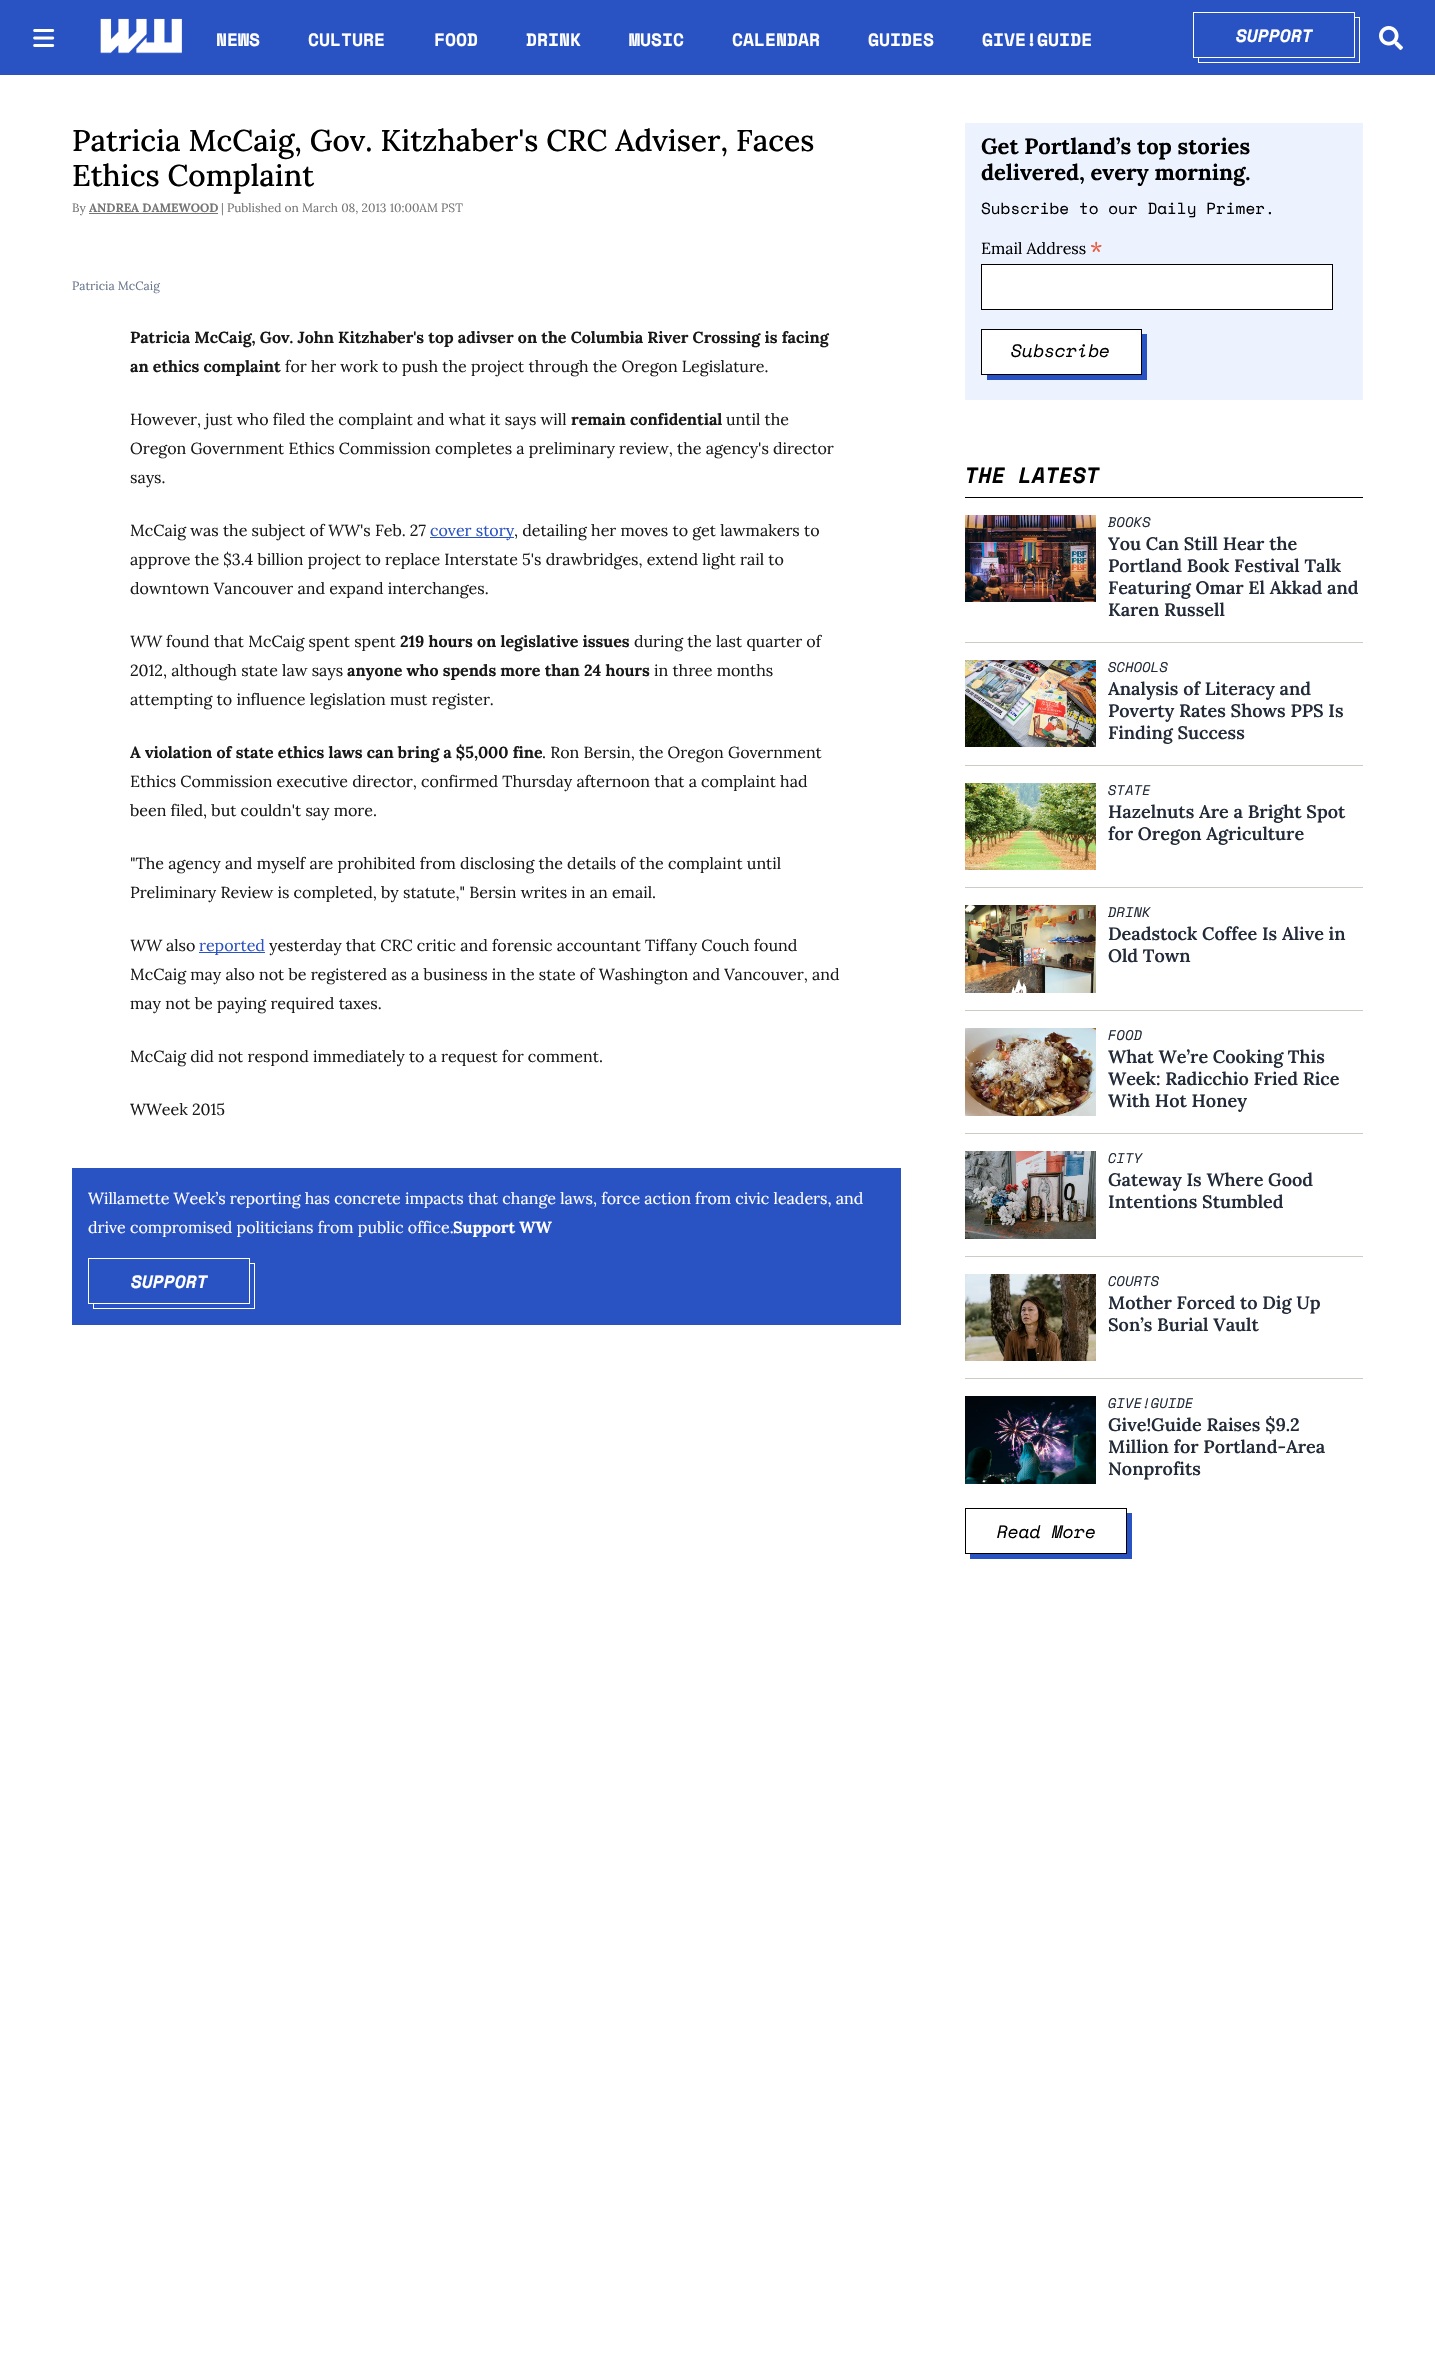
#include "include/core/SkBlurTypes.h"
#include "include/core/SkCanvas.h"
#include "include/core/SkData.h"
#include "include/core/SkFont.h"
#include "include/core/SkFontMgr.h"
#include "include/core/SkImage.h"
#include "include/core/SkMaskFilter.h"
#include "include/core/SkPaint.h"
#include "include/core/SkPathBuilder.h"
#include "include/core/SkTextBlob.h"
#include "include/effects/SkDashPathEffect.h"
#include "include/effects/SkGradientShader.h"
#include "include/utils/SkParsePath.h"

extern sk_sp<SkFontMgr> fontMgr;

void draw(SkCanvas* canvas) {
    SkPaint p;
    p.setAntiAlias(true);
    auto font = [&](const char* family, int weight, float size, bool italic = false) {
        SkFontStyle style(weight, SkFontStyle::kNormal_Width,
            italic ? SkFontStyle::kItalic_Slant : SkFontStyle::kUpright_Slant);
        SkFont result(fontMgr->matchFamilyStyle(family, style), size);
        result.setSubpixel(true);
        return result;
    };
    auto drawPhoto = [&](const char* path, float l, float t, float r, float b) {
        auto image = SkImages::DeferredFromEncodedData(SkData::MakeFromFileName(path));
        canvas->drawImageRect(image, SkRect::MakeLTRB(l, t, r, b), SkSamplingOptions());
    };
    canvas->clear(0xFFFFFFFF);
    p.setColor(0xFF2952C2);
    canvas->drawRect(SkRect::MakeLTRB(0, 0, 1435, 75), p);
    drawPhoto("media/1.png", 33, 29, 55, 47);
    drawPhoto("media/2.png", 100, 18, 182, 54);
    auto font1 = font("Space Mono", 700, 18);
    p.setColor(0xFFFFFFFF);
    {
        const struct { const char* s; float x, y; } items[] = {
            {"NEWS", 216, 46},
            {"CULTURE", 308, 46},
            {"FOOD", 434, 46},
            {"DRINK", 526, 46},
            {"MUSIC", 629, 46},
            {"CALENDAR", 732, 46},
            {"GUIDES", 868, 46},
            {"GIVE!GUIDE", 982, 46},
        };
        for (auto [s, x, y] : items) {
            canvas->drawString(s, x, y, font1, p);
        }
    }
    p.setStyle(SkPaint::kStroke_Style);
    p.setStrokeWidth(1);
    canvas->drawRect(SkRect::MakeLTRB(1198.5f, 17.5f, 1359.5f, 62.5f), p);
    p.setStyle(SkPaint::kFill_Style);
    p.setColor(0xFF2952C2);
    canvas->drawRect(SkRect::MakeLTRB(1198, 17, 1354, 57), p);
    p.setStyle(SkPaint::kStroke_Style);
    p.setColor(0xFFFFFFFF);
    canvas->drawRect(SkRect::MakeLTRB(1193.5f, 12.5f, 1354.5f, 57.5f), p);
    auto font2 = font("Space Mono", 700, 18, true);
    p.setStyle(SkPaint::kFill_Style);
    canvas->drawString("SUPPORT", 1236, 42, font2, p);
    drawPhoto("media/3.png", 1379, 26, 1403, 50);
    auto font3 = font("Lora", 500, 30);
    p.setColor(0xFF000000);
    canvas->drawString("Patricia McCaig, Gov. Kitzhaber's CRC Adviser, Faces", 72, 151, font3, p);
    canvas->drawString("Ethics Complaint", 72, 186, font3, p);
    auto font4 = font("Lora", 400, 12);
    p.setColor(0xFF757575);
    canvas->drawString("By", 72, 212, font4, p);
    auto font5 = font("Lora", 700, 12);
    canvas->drawString("ANDREA DAMEWOOD", 89, 212, font5, p);
    canvas->drawRect(SkRect::MakeLTRB(89, 213, 218, 214), p);
    canvas->drawString("| Published on March 08, 2013 10:00AM PST", 221, 212, font4, p);
    p.setColor(0xFF69778E);
    canvas->drawString("Patricia McCaig", 72, 290, font4, p);
    auto font6 = font("Lora", 700, 16);
    p.setColor(0xFF191919);
    canvas->drawString("Patricia McCaig, Gov. John Kitzhaber's top adivser on the Columbia River Crossing is facing", 130, 343, font6, p);
    canvas->drawString("an ethics complaint", 130, 372, font6, p);
    auto font7 = font("Lora", 400, 16);
    canvas->drawString("for her work to push the project through the Oregon Legislature.", 285, 372, font7, p);
    canvas->drawString("However, just who filed the complaint and what it says will", 130, 425, font7, p);
    canvas->drawString("remain confidential", 571, 425, font6, p);
    {
        const struct { const char* s; float x, y; } items[] = {
            {"until the", 726, 425},
            {"Oregon Government Ethics Commission completes a preliminary review, the agency's director", 130, 454},
            {"says.", 130, 483},
            {"McCaig was the subject of", 130, 536},
        };
        for (auto [s, x, y] : items) {
            canvas->drawString(s, x, y, font7, p);
        }
    }
    auto font8 = font("Lora", 400, 16, true);
    canvas->drawString("WW", 328, 536, font8, p);
    canvas->drawString("'s Feb. 27", 360, 536, font7, p);
    p.setColor(0xFF2952C2);
    canvas->drawRect(SkRect::MakeLTRB(430, 537, 514, 538), p);
    canvas->drawString("cover story", 430, 536, font7, p);
    p.setColor(0xFF191919);
    {
        const struct { const char* s; float x, y; } items[] = {
            {", detailing her moves to get lawmakers to", 514, 536},
            {"approve the $3.4 billion project to replace Interstate 5's drawbridges, extend light rail to", 130, 565},
            {"downtown Vancouver and expand interchanges.", 130, 594},
        };
        for (auto [s, x, y] : items) {
            canvas->drawString(s, x, y, font7, p);
        }
    }
    canvas->drawString("WW", 130, 647, font8, p);
    canvas->drawString("found that McCaig spent spent", 166, 647, font7, p);
    canvas->drawString("219 hours on legislative issues", 400, 647, font6, p);
    canvas->drawString("during the last quarter of", 634, 647, font7, p);
    canvas->drawString("2012, although state law says", 130, 676, font7, p);
    canvas->drawString("anyone who spends more than 24 hours", 347, 676, font6, p);
    canvas->drawString("in three months", 654, 676, font7, p);
    canvas->drawString("attempting to influence legislation must register.", 130, 705, font7, p);
    canvas->drawString("A violation of state ethics laws can bring a $5,000 fine", 130, 758, font6, p);
    {
        const struct { const char* s; float x, y; } items[] = {
            {". Ron Bersin, the Oregon Government", 542, 758},
            {"Ethics Commission executive director, confirmed Thursday afternoon that a complaint had", 130, 787},
            {"been filed, but couldn't say more.", 130, 816},
            {"\"The agency and myself are prohibited from disclosing the details of the complaint until", 130, 869},
            {"Preliminary Review is completed, by statute,\" Bersin writes in an email.", 130, 898},
        };
        for (auto [s, x, y] : items) {
            canvas->drawString(s, x, y, font7, p);
        }
    }
    canvas->drawString("WW", 130, 951, font8, p);
    canvas->drawString("also", 166, 951, font7, p);
    p.setColor(0xFF2952C2);
    canvas->drawRect(SkRect::MakeLTRB(199, 952, 265, 953), p);
    canvas->drawString("reported", 199, 951, font7, p);
    p.setColor(0xFF191919);
    {
        const struct { const char* s; float x, y; } items[] = {
            {"yesterday that CRC critic and forensic accountant Tiffany Couch found", 269, 951},
            {"McCaig may also not be registered as a business in the state of Washington and Vancouver, and", 130, 980},
            {"may not be paying required taxes.", 130, 1009},
            {"McCaig did not respond immediately to a request for comment.", 130, 1062},
            {"WWeek 2015", 130, 1115},
        };
        for (auto [s, x, y] : items) {
            canvas->drawString(s, x, y, font7, p);
        }
    }
    p.setColor(0xFF2952C2);
    canvas->drawRect(SkRect::MakeLTRB(72, 1168, 901, 1325), p);
    p.setColor(0xFFFFFFFF);
    canvas->drawString("Willamette Week’s reporting has concrete impacts that change laws, force action from civic leaders, and", 88, 1204, font7, p);
    canvas->drawString("drive compromised politicians from public office.", 88, 1233, font7, p);
    canvas->drawString("Support WW", 453, 1233, font6, p);
    p.setStyle(SkPaint::kStroke_Style);
    canvas->drawRect(SkRect::MakeLTRB(93.5f, 1263.5f, 254.5f, 1308.5f), p);
    p.setStyle(SkPaint::kFill_Style);
    p.setColor(0xFF2952C2);
    canvas->drawRect(SkRect::MakeLTRB(93, 1263, 249, 1303), p);
    p.setStyle(SkPaint::kStroke_Style);
    p.setColor(0xFFFFFFFF);
    canvas->drawRect(SkRect::MakeLTRB(88.5f, 1258.5f, 249.5f, 1303.5f), p);
    p.setStyle(SkPaint::kFill_Style);
    canvas->drawString("SUPPORT", 131, 1288, font2, p);
    p.setColor(0xFFEDF2FF);
    canvas->drawRect(SkRect::MakeLTRB(965, 123, 1363, 400), p);
    auto font9 = font("Lora", 700, 22);
    p.setColor(0xFF000000);
    canvas->drawString("Get Portland’s top stories", 981, 154, font9, p);
    canvas->drawString("delivered, every morning.", 981, 180, font9, p);
    auto font10 = font("Space Mono", 400, 16);
    canvas->drawString("Subscribe to our Daily Primer.", 981, 214, font10, p);
    canvas->drawString("Email Address", 981, 254, font7, p);
    auto font11 = font("Lora", 400, 24);
    p.setColor(0xFFE85C41);
    canvas->drawString("*", 1090, 259, font11, p);
    p.setColor(0xFFFFFFFF);
    canvas->drawRect(SkRect::MakeLTRB(981.5f, 264.5f, 1332.5f, 309.5f), p);
    p.setStyle(SkPaint::kStroke_Style);
    p.setColor(0xFF000000);
    canvas->drawRect(SkRect::MakeLTRB(981.5f, 264.5f, 1332.5f, 309.5f), p);
    p.setStyle(SkPaint::kFill_Style);
    p.setColor(0xFF2952C2);
    canvas->drawRect(SkRect::MakeLTRB(988, 335, 1146, 379), p);
    canvas->drawPath(SkPathBuilder().moveTo(1146, 335).lineTo(1146, 379).lineTo(988, 379).lineTo(988, 335).lineTo(1146, 335).moveTo(1147, 334).lineTo(987, 334).lineTo(987, 380).lineTo(1147, 380).close().detach(), p);
    p.setColor(0xFFFFFFFF);
    canvas->drawRect(SkRect::MakeLTRB(982, 330, 1141, 374), p);
    p.setColor(0xFF000000);
    canvas->drawPath(SkPathBuilder().moveTo(1141, 330).lineTo(1141, 374).lineTo(982, 374).lineTo(982, 330).lineTo(1141, 330).moveTo(1142, 329).lineTo(981, 329).lineTo(981, 375).lineTo(1142, 375).close().detach(), p);
    auto font12 = font("Space Mono", 400, 18, true);
    canvas->drawString("Subscribe", 1011, 357, font12, p);
    canvas->drawRect(SkRect::MakeLTRB(965, 497, 1363, 498), p);
    auto font13 = font("Space Mono", 700, 22, true);
    canvas->drawString("THE LATEST", 965, 483, font13, p);
    drawPhoto("media/4.png", 965, 515, 1096, 602);
    auto font14 = font("Space Mono", 400, 14, true);
    p.setColor(0xFF232B39);
    canvas->drawString("BOOKS", 1108, 527, font14, p);
    auto font15 = font("Lora", 600, 18);
    {
        const struct { const char* s; float x, y; } items[] = {
            {"You Can Still Hear the", 1108, 550},
            {"Portland Book Festival Talk", 1108, 572},
            {"Featuring Omar El Akkad and", 1108, 594},
            {"Karen Russell", 1108, 616},
        };
        for (auto [s, x, y] : items) {
            canvas->drawString(s, x, y, font15, p);
        }
    }
    p.setColor(0xFFCCCBC6);
    canvas->drawRect(SkRect::MakeLTRB(965, 642, 1363, 643), p);
    drawPhoto("media/5.png", 965, 660, 1096, 747);
    p.setColor(0xFF232B39);
    canvas->drawString("SCHOOLS", 1108, 672, font14, p);
    {
        const struct { const char* s; float x, y; } items[] = {
            {"Analysis of Literacy and", 1108, 695},
            {"Poverty Rates Shows PPS Is", 1108, 717},
            {"Finding Success", 1108, 739},
        };
        for (auto [s, x, y] : items) {
            canvas->drawString(s, x, y, font15, p);
        }
    }
    p.setColor(0xFFCCCBC6);
    canvas->drawRect(SkRect::MakeLTRB(965, 765, 1363, 766), p);
    drawPhoto("media/6.png", 965, 783, 1096, 870);
    p.setColor(0xFF232B39);
    canvas->drawString("STATE", 1108, 795, font14, p);
    canvas->drawString("Hazelnuts Are a Bright Spot", 1108, 818, font15, p);
    canvas->drawString("for Oregon Agriculture", 1108, 840, font15, p);
    p.setColor(0xFFCCCBC6);
    canvas->drawRect(SkRect::MakeLTRB(965, 887, 1363, 888), p);
    drawPhoto("media/7.png", 965, 905, 1096, 993);
    p.setColor(0xFF232B39);
    canvas->drawString("DRINK", 1108, 917, font14, p);
    canvas->drawString("Deadstock Coffee Is Alive in", 1108, 940, font15, p);
    canvas->drawString("Old Town", 1108, 962, font15, p);
    p.setColor(0xFFCCCBC6);
    canvas->drawRect(SkRect::MakeLTRB(965, 1010, 1363, 1011), p);
    drawPhoto("media/8.png", 965, 1028, 1096, 1116);
    p.setColor(0xFF232B39);
    canvas->drawString("FOOD", 1108, 1040, font14, p);
    {
        const struct { const char* s; float x, y; } items[] = {
            {"What We’re Cooking This", 1108, 1063},
            {"Week: Radicchio Fried Rice", 1108, 1085},
            {"With Hot Honey", 1108, 1107},
        };
        for (auto [s, x, y] : items) {
            canvas->drawString(s, x, y, font15, p);
        }
    }
    p.setColor(0xFFCCCBC6);
    canvas->drawRect(SkRect::MakeLTRB(965, 1133, 1363, 1134), p);
    drawPhoto("media/9.png", 965, 1151, 1096, 1239);
    p.setColor(0xFF232B39);
    canvas->drawString("CITY", 1108, 1163, font14, p);
    canvas->drawString("Gateway Is Where Good", 1108, 1186, font15, p);
    canvas->drawString("Intentions Stumbled", 1108, 1208, font15, p);
    p.setColor(0xFFCCCBC6);
    canvas->drawRect(SkRect::MakeLTRB(965, 1256, 1363, 1257), p);
    drawPhoto("media/10.png", 965, 1274, 1096, 1361);
    p.setColor(0xFF232B39);
    canvas->drawString("COURTS", 1108, 1286, font14, p);
    canvas->drawString("Mother Forced to Dig Up", 1108, 1309, font15, p);
    canvas->drawString("Son’s Burial Vault", 1108, 1331, font15, p);
    p.setColor(0xFFCCCBC6);
    canvas->drawRect(SkRect::MakeLTRB(965, 1378, 1363, 1379), p);
    drawPhoto("media/11.png", 965, 1396, 1096, 1484);
    p.setColor(0xFF232B39);
    canvas->drawString("GIVE!GUIDE", 1108, 1408, font14, p);
    {
        const struct { const char* s; float x, y; } items[] = {
            {"Give!Guide Raises $9.2", 1108, 1431},
            {"Million for Portland-Area", 1108, 1453},
            {"Nonprofits", 1108, 1475},
        };
        for (auto [s, x, y] : items) {
            canvas->drawString(s, x, y, font15, p);
        }
    }
    p.setColor(0xFF2952C2);
    canvas->drawRect(SkRect::MakeLTRB(970, 1513, 1132, 1559), p);
    p.setColor(0xFFFFFFFF);
    canvas->drawRect(SkRect::MakeLTRB(970, 1513, 1126, 1553), p);
    p.setStyle(SkPaint::kStroke_Style);
    p.setColor(0xFF000000);
    canvas->drawRect(SkRect::MakeLTRB(965.5f, 1508.5f, 1126.5f, 1553.5f), p);
    p.setStyle(SkPaint::kFill_Style);
    canvas->drawString("Read More", 997, 1538, font12, p);
}
